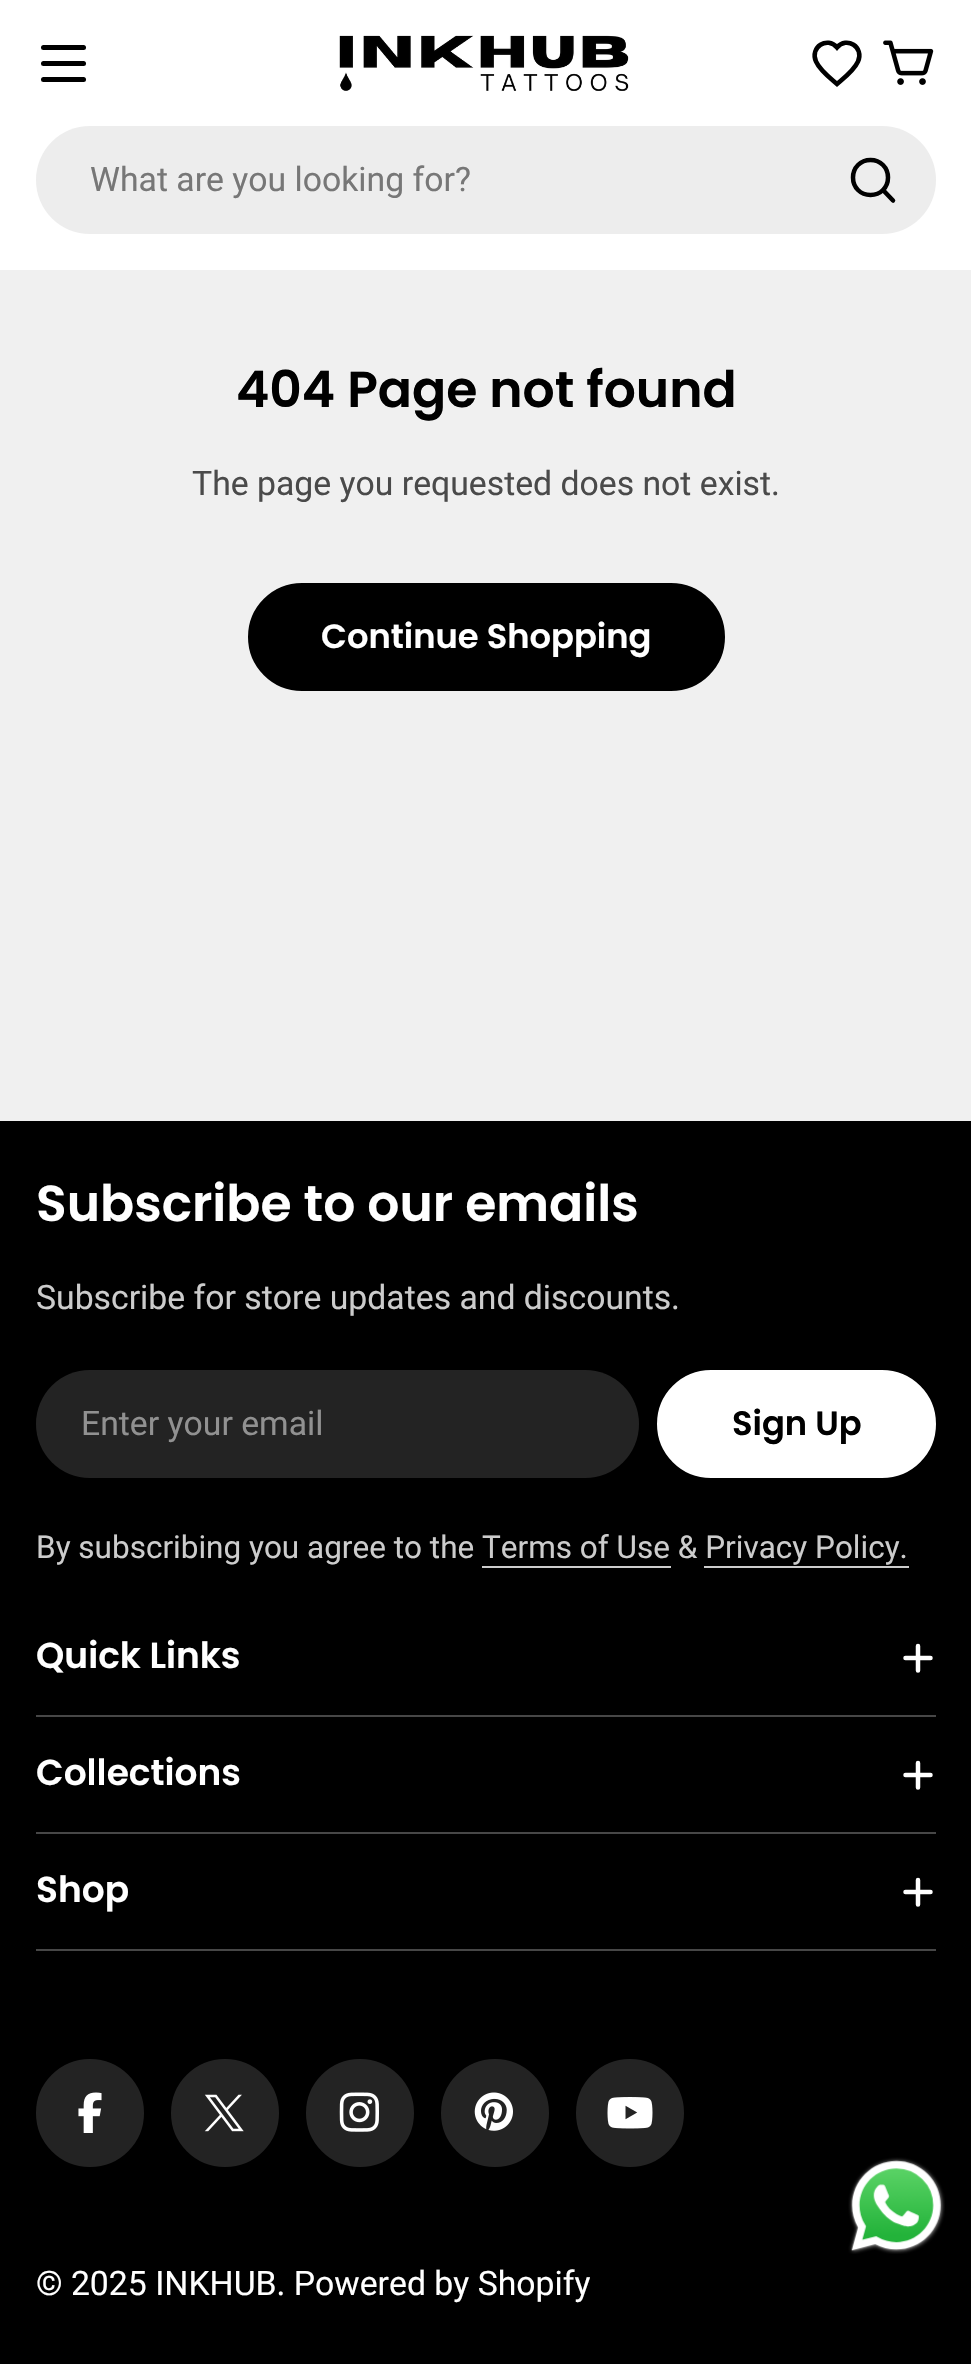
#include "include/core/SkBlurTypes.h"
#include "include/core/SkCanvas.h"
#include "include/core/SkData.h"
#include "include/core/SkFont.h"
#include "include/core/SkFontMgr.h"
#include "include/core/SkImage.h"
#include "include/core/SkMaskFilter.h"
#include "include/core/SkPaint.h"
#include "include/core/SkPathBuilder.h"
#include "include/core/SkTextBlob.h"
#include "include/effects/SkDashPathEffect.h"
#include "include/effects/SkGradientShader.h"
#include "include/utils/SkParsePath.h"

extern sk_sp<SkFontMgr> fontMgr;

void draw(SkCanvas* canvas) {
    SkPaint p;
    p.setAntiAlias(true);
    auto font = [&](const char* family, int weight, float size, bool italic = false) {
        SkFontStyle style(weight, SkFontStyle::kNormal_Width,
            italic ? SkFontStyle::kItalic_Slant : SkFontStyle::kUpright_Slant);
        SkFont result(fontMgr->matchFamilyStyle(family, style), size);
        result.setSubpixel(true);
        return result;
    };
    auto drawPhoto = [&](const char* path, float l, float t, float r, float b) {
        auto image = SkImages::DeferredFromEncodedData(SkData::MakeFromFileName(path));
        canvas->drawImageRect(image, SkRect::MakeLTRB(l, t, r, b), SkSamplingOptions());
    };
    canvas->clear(0xFFF0F0F0);
    p.setColor(0xFFFFFFFF);
    canvas->drawRect(SkRect::MakeLTRB(0, 0, 971, 270), p);
    p.setColor(0xFF000000);
    canvas->drawRoundRect(SkRect::MakeLTRB(41, 61, 86, 66), 2.5f, 2.5f, p);
    canvas->drawRoundRect(SkRect::MakeLTRB(41, 45, 86, 50), 2.5f, 2.5f, p);
    canvas->drawRoundRect(SkRect::MakeLTRB(41, 77, 86, 82), 2.5f, 2.5f, p);
    drawPhoto("media/1.png", 339, 35, 629, 91);
    p.setStyle(SkPaint::kStroke_Style);
    p.setStrokeWidth(4.5f);
    canvas->drawPath(SkPathBuilder().moveTo(837, 84).cubicTo(829.5f, 77.5f, 820, 70.5f, 816, 61.5f).cubicTo(809.5f, 47, 827.5f, 36, 837, 47.5f).cubicTo(846.5f, 36, 864.5f, 47, 858, 61.5f).cubicTo(854, 70.5f, 844.5f, 77.5f, 837, 84).close().detach(), p);
    drawPhoto("media/2.png", 883, 40, 934, 85);
    p.setStyle(SkPaint::kFill_Style);
    p.setColor(0xFFEDEDED);
    canvas->drawRoundRect(SkRect::MakeLTRB(36, 126, 936, 234), 54, 54, p);
    auto font1 = font("Roboto", 400, 33.75f);
    p.setColor(0xFF777777);
    canvas->drawString("What are you looking for?", 90, 191, font1, p);
    p.setStyle(SkPaint::kStroke_Style);
    p.setStrokeCap(SkPaint::kRound_Cap);
    p.setStrokeJoin(SkPaint::kRound_Join);
    p.setColor(0xFF000000);
    canvas->drawPath(SkPathBuilder().moveTo(870.5f, 195).cubicTo(880.5f, 195, 888, 187.5f, 888, 177.5f).cubicTo(888, 167.5f, 880.5f, 160, 870.5f, 160).cubicTo(860.5f, 160, 853, 167.5f, 853, 177.5f).cubicTo(853, 187.5f, 860.5f, 195, 870.5f, 195).close().moveTo(883, 190).lineTo(893, 200.5f).detach(), p);
    auto font2 = font("Poppins", 600, 50.4f);
    p.setStyle(SkPaint::kFill_Style);
    canvas->drawString("404 Page not found", 236, 407, font2, p);
    p.setColor(0xFF4A4A4A);
    canvas->drawString("The page you requested does not exist.", 192, 495, font1, p);
    p.setColor(0xFF000000);
    canvas->drawRoundRect(SkRect::MakeLTRB(249, 584, 724, 690), 53, 53, p);
    p.setStyle(SkPaint::kStroke_Style);
    p.setStrokeWidth(2);
    p.setStrokeCap(SkPaint::kButt_Cap);
    p.setStrokeJoin(SkPaint::kMiter_Join);
    canvas->drawRoundRect(SkRect::MakeLTRB(249, 584, 724, 690), 53, 53, p);
    auto font3 = font("Poppins", 600, 33.75f);
    p.setStyle(SkPaint::kFill_Style);
    p.setColor(0xFFFFFFFF);
    canvas->drawString("Continue Shopping", 321, 648, font3, p);
    p.setColor(0xFF000000);
    canvas->drawRect(SkRect::MakeLTRB(0, 1121, 971, 2364), p);
    p.setColor(0xFFFFFFFF);
    canvas->drawString("Subscribe to our emails", 36, 1221, font2, p);
    p.setColor(0xFFCCCCCC);
    canvas->drawString("Subscribe for store updates and discounts.", 36, 1309, font1, p);
    p.setColor(0xFF232323);
    canvas->drawRoundRect(SkRect::MakeLTRB(36, 1370, 639, 1478), 54, 54, p);
    p.setColor(0xFF919191);
    canvas->drawString("Enter your email", 81, 1435, font1, p);
    p.setColor(0xFFFFFFFF);
    canvas->drawRoundRect(SkRect::MakeLTRB(658, 1371, 935, 1477), 53, 53, p);
    p.setStyle(SkPaint::kStroke_Style);
    canvas->drawRoundRect(SkRect::MakeLTRB(658, 1371, 935, 1477), 53, 53, p);
    p.setStyle(SkPaint::kFill_Style);
    p.setColor(0xFF000000);
    canvas->drawString("Sign Up", 732, 1435, font3, p);
    auto font4 = font("Roboto", 400, 31.5f);
    p.setColor(0xFFCCCCCC);
    canvas->drawString("By subscribing you agree to the Terms of Use & Privacy Policy.", 36, 1558, font4, p);
    canvas->drawRect(SkRect::MakeLTRB(482, 1566, 671, 1568), p);
    canvas->drawRect(SkRect::MakeLTRB(704, 1566, 909, 1568), p);
    auto font5 = font("Poppins", 600, 36);
    p.setColor(0xFFFFFFFF);
    canvas->drawString("Quick Links", 36, 1668, font5, p);
    p.setStyle(SkPaint::kStroke_Style);
    p.setStrokeWidth(4.5f);
    p.setStrokeCap(SkPaint::kRound_Cap);
    p.setStrokeJoin(SkPaint::kRound_Join);
    canvas->drawPath(SkPathBuilder().moveTo(905.5f, 1658).lineTo(930.5f, 1658).moveTo(918, 1646).lineTo(918, 1670.5f).detach(), p);
    p.setStyle(SkPaint::kFill_Style);
    p.setColor(0xFF474747);
    canvas->drawRect(SkRect::MakeLTRB(36, 1715, 936, 1717), p);
    p.setColor(0xFFFFFFFF);
    canvas->drawString("Collections", 36, 1785, font5, p);
    p.setStyle(SkPaint::kStroke_Style);
    canvas->drawPath(SkPathBuilder().moveTo(905.5f, 1775).lineTo(930.5f, 1775).moveTo(918, 1763).lineTo(918, 1787.5f).detach(), p);
    p.setStyle(SkPaint::kFill_Style);
    p.setColor(0xFF474747);
    canvas->drawRect(SkRect::MakeLTRB(36, 1832, 936, 1834), p);
    p.setColor(0xFFFFFFFF);
    canvas->drawString("Shop", 36, 1902, font5, p);
    p.setStyle(SkPaint::kStroke_Style);
    canvas->drawPath(SkPathBuilder().moveTo(905.5f, 1892).lineTo(930.5f, 1892).moveTo(918, 1880).lineTo(918, 1904.5f).detach(), p);
    p.setStyle(SkPaint::kFill_Style);
    p.setColor(0xFF474747);
    canvas->drawRect(SkRect::MakeLTRB(36, 1949, 936, 1951), p);
    p.setColor(0xFF232323);
    canvas->drawCircle(90, 2113, 53, p);
    p.setStyle(SkPaint::kStroke_Style);
    p.setStrokeWidth(2);
    p.setStrokeCap(SkPaint::kButt_Cap);
    p.setStrokeJoin(SkPaint::kMiter_Join);
    canvas->drawCircle(90, 2113, 53, p);
    drawPhoto("media/3.png", 78, 2092, 102, 2133);
    p.setStyle(SkPaint::kFill_Style);
    canvas->drawCircle(225, 2113, 53, p);
    p.setStyle(SkPaint::kStroke_Style);
    canvas->drawCircle(225, 2113, 53, p);
    drawPhoto("media/4.png", 204, 2094, 244, 2132);
    p.setStyle(SkPaint::kFill_Style);
    canvas->drawCircle(360, 2113, 53, p);
    p.setStyle(SkPaint::kStroke_Style);
    canvas->drawCircle(360, 2113, 53, p);
    drawPhoto("media/5.png", 339, 2092, 379, 2132);
    p.setStyle(SkPaint::kFill_Style);
    canvas->drawCircle(495, 2113, 53, p);
    p.setStyle(SkPaint::kStroke_Style);
    canvas->drawCircle(495, 2113, 53, p);
    drawPhoto("media/6.png", 474, 2092, 513, 2131);
    p.setStyle(SkPaint::kFill_Style);
    canvas->drawCircle(630, 2113, 53, p);
    p.setStyle(SkPaint::kStroke_Style);
    canvas->drawCircle(630, 2113, 53, p);
    drawPhoto("media/7.png", 607, 2097, 653, 2129);
    p.setStyle(SkPaint::kFill_Style);
    p.setColor(0xFFFFFFFF);
    canvas->drawString("© 2025 INKHUB. Powered by Shopify", 36, 2295, font1, p);
    drawPhoto("media/8.png", 848, 2157, 945, 2254);
}
